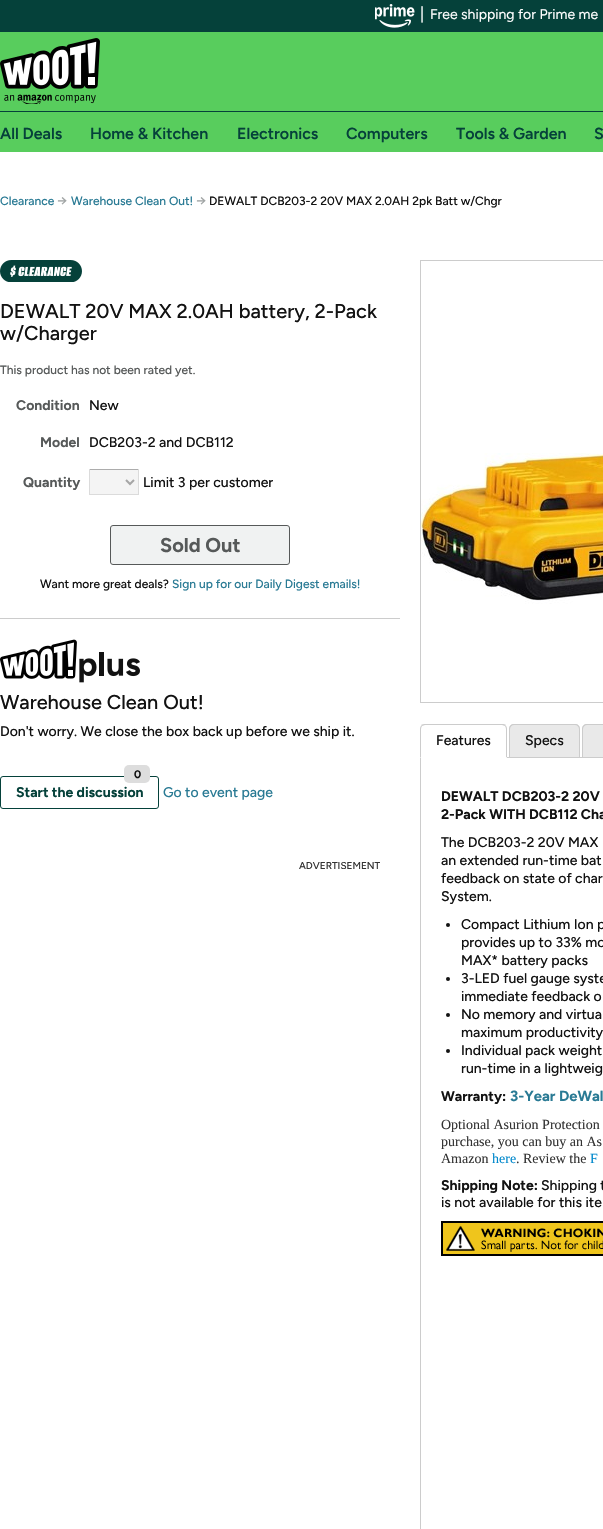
#include "include/core/SkBlurTypes.h"
#include "include/core/SkCanvas.h"
#include "include/core/SkData.h"
#include "include/core/SkFont.h"
#include "include/core/SkFontMgr.h"
#include "include/core/SkImage.h"
#include "include/core/SkMaskFilter.h"
#include "include/core/SkPaint.h"
#include "include/core/SkPathBuilder.h"
#include "include/core/SkTextBlob.h"
#include "include/effects/SkDashPathEffect.h"
#include "include/effects/SkGradientShader.h"
#include "include/utils/SkParsePath.h"

extern sk_sp<SkFontMgr> fontMgr;

void draw(SkCanvas* canvas) {
    SkPaint p;
    p.setAntiAlias(true);
    auto font = [&](const char* family, int weight, float size, bool italic = false) {
        SkFontStyle style(weight, SkFontStyle::kNormal_Width,
            italic ? SkFontStyle::kItalic_Slant : SkFontStyle::kUpright_Slant);
        SkFont result(fontMgr->matchFamilyStyle(family, style), size);
        result.setSubpixel(true);
        return result;
    };
    auto drawPhoto = [&](const char* path, float l, float t, float r, float b) {
        auto image = SkImages::DeferredFromEncodedData(SkData::MakeFromFileName(path));
        canvas->drawImageRect(image, SkRect::MakeLTRB(l, t, r, b), SkSamplingOptions());
    };
    canvas->clear(0xFFFFFFFF);
    p.setColor(0xFF05413A);
    canvas->drawRect(SkRect::MakeLTRB(0, 0, 603, 32), p);
    drawPhoto("media/1.png", 375, 4, 415, 28);
    auto font1 = font("Figtree", 400, 16);
    p.setColor(0xFFFFFFFF);
    canvas->drawString("|", 420, 19, font1, p);
    auto font2 = font("Figtree", 400, 14);
    canvas->drawString("Free shipping for Prime me", 430, 19, font2, p);
    p.setColor(0xFF58CD5D);
    canvas->drawRect(SkRect::MakeLTRB(0, 32, 603, 152), p);
    p.setColor(0xFF05413A);
    canvas->drawRect(SkRect::MakeLTRB(0, 111, 603, 112), p);
    drawPhoto("media/2.png", 0, 38, 100, 104);
    auto font3 = font("Figtree", 600, 16);
    {
        const struct { const char* s; float x, y; } items[] = {
            {"All Deals", 0, 139},
            {"Home & Kitchen", 90, 139},
            {"Electronics", 237, 139},
            {"Computers", 346, 139},
            {"Tools & Garden", 456, 139},
            {"S", 594, 139},
        };
        for (auto [s, x, y] : items) {
            canvas->drawString(s, x, y, font3, p);
        }
    }
    auto font4 = font("Figtree", 500, 12);
    p.setColor(0xFF297A94);
    canvas->drawString("Clearance", 0, 205, font4, p);
    auto font5 = font("Figtree", 500, 14);
    p.setColor(0xFFA2A6A6);
    canvas->drawString("→", 57, 205, font5, p);
    p.setColor(0xFF297A94);
    canvas->drawString("Warehouse Clean Out!", 71, 205, font4, p);
    p.setColor(0xFFA2A6A6);
    canvas->drawString("→", 196, 205, font5, p);
    p.setColor(0xFF121212);
    canvas->drawString("DEWALT DCB203-2 20V MAX 2.0AH 2pk Batt w/Chgr", 209, 205, font4, p);
    p.setColor(0xFFCCCCCC);
    canvas->drawRect(SkRect::MakeLTRB(0, 618, 400, 619), p);
    drawPhoto("media/3.png", 0, 260, 82, 282);
    auto font6 = font("Figtree", 500, 20);
    p.setColor(0xFF121212);
    canvas->drawString("DEWALT 20V MAX 2.0AH battery, 2-Pack", 0, 318, font6, p);
    canvas->drawString("w/Charger", 0, 340, font6, p);
    p.setColor(0xFF565959);
    canvas->drawString("This product has not been rated yet.", 0, 374, font4, p);
    auto font7 = font("Figtree", 700, 14);
    canvas->drawString("Condition", 16, 410, font7, p);
    p.setColor(0xFF121212);
    canvas->drawString("New", 89, 410, font5, p);
    p.setColor(0xFF565959);
    canvas->drawString("Model", 40, 447, font7, p);
    p.setColor(0xFF121212);
    canvas->drawString("DCB203-2 and DCB112", 89, 447, font5, p);
    p.setColor(0xFF565959);
    canvas->drawString("Quantity", 23, 487, font7, p);
    {
        const struct { float l, t, r, b; SkColor color; } items[] = {
            {90, 470, 138, 494, 0xFFF4F4F4},
            {89, 469, 139, 470, 0xFFACACAC},
            {138, 469, 139, 495, 0xFFDBDBDB},
            {89, 494, 139, 495, 0xFFDBDBDB},
            {89, 469, 90, 495, 0xFFDBDBDB},
        };
        for (auto [l, t, r, b, color] : items) {
            p.setColor(color);
            canvas->drawRect(SkRect::MakeLTRB(l, t, r, b), p);
        }
    }
    p.setStyle(SkPaint::kStroke_Style);
    p.setStrokeWidth(2);
    p.setColor(0xFFA6A6A6);
    canvas->drawPath(SkPathBuilder().moveTo(126, 480).lineTo(130, 484).lineTo(134, 480).detach(), p);
    p.setStyle(SkPaint::kFill_Style);
    p.setColor(0xFF121212);
    canvas->drawString("Limit 3 per customer", 143, 487, font5, p);
    p.setColor(0xFFF0F2F2);
    canvas->drawRoundRect(SkRect::MakeLTRB(110.5f, 525.5f, 289.5f, 564.5f), 2.5f, 2.5f, p);
    p.setStyle(SkPaint::kStroke_Style);
    p.setStrokeWidth(1);
    p.setColor(0xFF565959);
    canvas->drawRoundRect(SkRect::MakeLTRB(110.5f, 525.5f, 289.5f, 564.5f), 2.5f, 2.5f, p);
    auto font8 = font("Figtree", 700, 20);
    p.setStyle(SkPaint::kFill_Style);
    canvas->drawString("Sold Out", 160, 552, font8, p);
    p.setColor(0xFF121212);
    canvas->drawString("Want more great deals?", 40, 588, font4, p);
    p.setColor(0xFF297A94);
    canvas->drawString("Sign up for our Daily Digest emails!", 172, 588, font4, p);
    drawPhoto("media/4.png", 0, 639, 140, 683);
    p.setColor(0xFF121212);
    canvas->drawString("Warehouse Clean Out!", 0, 709, font6, p);
    canvas->drawString("Don't worry. We close the box back up before we ship it.", 0, 736, font5, p);
    p.setStyle(SkPaint::kStroke_Style);
    p.setColor(0xFF05413A);
    canvas->drawRoundRect(SkRect::MakeLTRB(0.5f, 776.5f, 158.5f, 808.5f), 2.5f, 2.5f, p);
    p.setStyle(SkPaint::kFill_Style);
    p.setColor(0xFFDDDDDD);
    canvas->drawRoundRect(SkRect::MakeLTRB(124, 765, 150, 783), 5, 5, p);
    auto font9 = font("Figtree", 700, 11);
    p.setColor(0xFF121212);
    canvas->drawString("0", 134, 778, font9, p);
    p.setColor(0xFF05413A);
    canvas->drawString("Start the discussion", 16, 797, font7, p);
    p.setColor(0xFF297A94);
    canvas->drawString("Go to event page", 163, 797, font5, p);
    auto font10 = font("Figtree", 500, 10);
    p.setColor(0xFF333333);
    canvas->drawString("ADVERTISEMENT", 299, 869, font10, p);
    p.setStyle(SkPaint::kStroke_Style);
    p.setColor(0xFFCCCCCC);
    canvas->drawRect(SkRect::MakeLTRB(420.5f, 260.5f, 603.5f, 702.5f), p);
    drawPhoto("media/5.png", 421, 453, 603, 604);
    p.setStyle(SkPaint::kFill_Style);
    canvas->drawRect(SkRect::MakeLTRB(507, 757, 603, 758), p);
    canvas->drawPath(SkPathBuilder().moveTo(425, 724).cubicTo(424, 724, 422, 724, 421, 725).lineTo(422, 726).lineTo(425, 725).lineTo(502, 725).lineTo(505, 726).lineTo(506, 725).cubicTo(505, 724, 504, 724, 502, 724).close().detach(), p);
    canvas->drawPath(SkPathBuilder().moveTo(507, 758).lineTo(507, 729).cubicTo(507, 727.5f, 506.5f, 726, 505.5f, 725.5f).lineTo(505, 726).cubicTo(505.5f, 727, 506, 728, 506, 729).lineTo(506, 757).close().detach(), p);
    p.setColor(0xFFFFFFFF);
    canvas->drawPath(SkPathBuilder().moveTo(507, 758).lineTo(506, 757).lineTo(421, 757).lineTo(420, 758).close().detach(), p);
    p.setColor(0xFFCCCCCC);
    canvas->drawPath(SkPathBuilder().moveTo(420, 758).lineTo(421, 757).lineTo(421, 729).cubicTo(421, 728, 421.5f, 727, 422, 726).lineTo(421.5f, 725.5f).cubicTo(420.5f, 726, 420, 727.5f, 420, 729).close().detach(), p);
    p.setColor(0xFF121212);
    canvas->drawString("Features", 436, 745, font5, p);
    p.setColor(0xFFE9E9E9);
    canvas->drawPath(SkPathBuilder().moveTo(514, 724).lineTo(575, 724).cubicTo(578, 724, 580, 726, 580, 729).lineTo(580, 757).lineTo(509, 757).lineTo(509, 729).cubicTo(509, 726, 511, 724, 514, 724).close().detach(), p);
    p.setColor(0xFFCCCCCC);
    canvas->drawPath(SkPathBuilder(SkPathFillType::kEvenOdd).moveTo(514, 724).lineTo(575, 724).cubicTo(578, 724, 580, 726, 580, 729).lineTo(580, 757).lineTo(509, 757).lineTo(509, 729).cubicTo(509, 726, 511, 724, 514, 724).close().moveTo(514, 725).lineTo(575, 725).cubicTo(577, 725, 579, 727, 579, 729).lineTo(579, 757).lineTo(510, 757).lineTo(510, 729).cubicTo(510, 727, 512, 725, 514, 725).close().detach(), p);
    p.setColor(0xFF121212);
    canvas->drawString("Specs", 525, 745, font5, p);
    p.setColor(0xFFE9E9E9);
    canvas->drawPath(SkPathBuilder().moveTo(587, 724).lineTo(603, 724).cubicTo(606, 724, 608, 726, 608, 729).lineTo(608, 757).lineTo(582, 757).lineTo(582, 729).cubicTo(582, 726, 584, 724, 587, 724).close().detach(), p);
    p.setColor(0xFFCCCCCC);
    canvas->drawPath(SkPathBuilder(SkPathFillType::kEvenOdd).moveTo(587, 724).lineTo(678, 724).cubicTo(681, 724, 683, 726, 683, 729).lineTo(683, 757).lineTo(582, 757).lineTo(582, 729).cubicTo(582, 726, 584, 724, 587, 724).close().moveTo(587, 725).lineTo(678, 725).cubicTo(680, 725, 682, 727, 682, 729).lineTo(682, 757).lineTo(583, 757).lineTo(583, 729).cubicTo(583, 727, 585, 725, 587, 725).close().detach(), p);
    canvas->drawRect(SkRect::MakeLTRB(420, 758, 421, 1529), p);
    p.setColor(0xFF121212);
    canvas->drawString("DEWALT DCB203-2 20V", 441, 801, font7, p);
    canvas->drawString("2-Pack WITH DCB112 Cha", 441, 819, font7, p);
    {
        const struct { const char* s; float x, y; } items[] = {
            {"The DCB203-2 20V MAX", 441, 847},
            {"an extended run-time bat", 441, 865},
            {"feedback on state of char", 441, 883},
            {"System.", 441, 901},
        };
        for (auto [s, x, y] : items) {
            canvas->drawString(s, x, y, font5, p);
        }
    }
    canvas->drawCircle(448, 925, 2, p);
    {
        const struct { const char* s; float x, y; } items[] = {
            {"Compact Lithium Ion p", 461, 929},
            {"provides up to 33% mo", 461, 947},
            {"MAX* battery packs", 461, 965},
        };
        for (auto [s, x, y] : items) {
            canvas->drawString(s, x, y, font5, p);
        }
    }
    canvas->drawCircle(448, 979, 2, p);
    canvas->drawString("3-LED fuel gauge syste", 461, 983, font5, p);
    canvas->drawString("immediate feedback o", 461, 1001, font5, p);
    canvas->drawCircle(448, 1015, 2, p);
    canvas->drawString("No memory and virtua", 461, 1019, font5, p);
    canvas->drawString("maximum productivity", 461, 1037, font5, p);
    canvas->drawCircle(448, 1051, 2, p);
    canvas->drawString("Individual pack weight", 461, 1055, font5, p);
    canvas->drawString("run-time in a lightweig", 461, 1073, font5, p);
    canvas->drawString("Warranty:", 441, 1101, font7, p);
    auto font11 = font("Figtree", 700, 14.75f);
    p.setColor(0xFF297A94);
    canvas->drawString("3-Year DeWal", 510, 1101, font11, p);
    auto font12 = font("Liberation Serif", 400, 14);
    p.setColor(0xFF333333);
    {
        const struct { const char* s; float x, y; } items[] = {
            {"Optional Asurion Protection", 441, 1129},
            {"purchase, you can buy an As", 441, 1146},
            {"Amazon", 441, 1163},
        };
        for (auto [s, x, y] : items) {
            canvas->drawString(s, x, y, font12, p);
        }
    }
    p.setColor(0xFF0088CC);
    canvas->drawString("here", 492, 1163, font12, p);
    p.setColor(0xFF333333);
    canvas->drawString(". Review the", 516, 1163, font12, p);
    p.setColor(0xFF0088CC);
    canvas->drawString("F", 590, 1163, font12, p);
    p.setColor(0xFF121212);
    canvas->drawString("Shipping Note:", 441, 1190, font7, p);
    canvas->drawString("Shipping t", 541, 1190, font5, p);
    canvas->drawString("is not available for this ite", 441, 1207, font5, p);
    drawPhoto("media/6.png", 441, 1221, 603, 1256);
}
